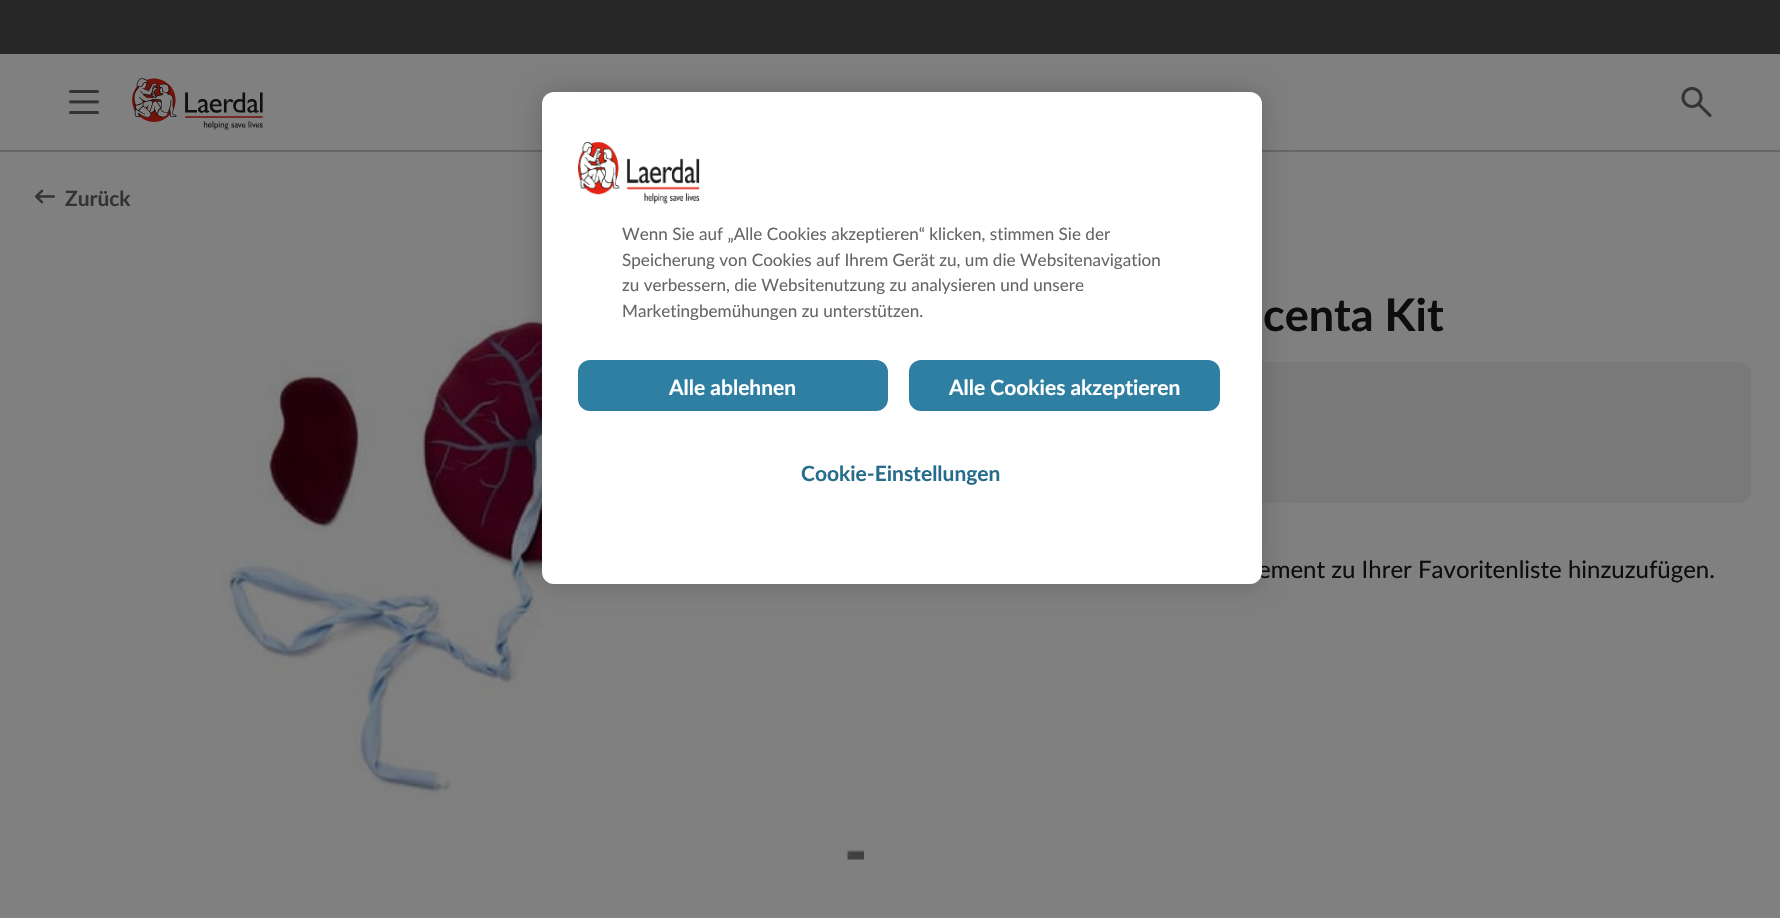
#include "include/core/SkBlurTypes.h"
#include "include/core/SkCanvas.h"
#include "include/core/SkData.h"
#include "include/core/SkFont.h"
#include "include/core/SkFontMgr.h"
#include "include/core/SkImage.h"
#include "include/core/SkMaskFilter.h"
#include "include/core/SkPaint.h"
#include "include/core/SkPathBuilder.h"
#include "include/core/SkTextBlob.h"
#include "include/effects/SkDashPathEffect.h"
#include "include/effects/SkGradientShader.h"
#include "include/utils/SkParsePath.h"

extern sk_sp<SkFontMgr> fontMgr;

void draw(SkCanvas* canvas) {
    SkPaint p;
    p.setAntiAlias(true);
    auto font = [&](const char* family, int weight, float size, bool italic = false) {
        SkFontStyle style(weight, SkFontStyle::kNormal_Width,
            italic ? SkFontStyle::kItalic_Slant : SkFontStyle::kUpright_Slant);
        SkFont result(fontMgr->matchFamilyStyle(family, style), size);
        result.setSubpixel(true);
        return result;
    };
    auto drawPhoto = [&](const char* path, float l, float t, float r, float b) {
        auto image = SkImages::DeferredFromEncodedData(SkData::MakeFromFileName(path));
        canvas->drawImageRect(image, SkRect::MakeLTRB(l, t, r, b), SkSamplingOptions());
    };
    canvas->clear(0xFF808080);
    p.setColor(0xFF272727);
    canvas->drawRect(SkRect::MakeLTRB(0, 0, 1780, 54), p);
    p.setColor(0xFF666666);
    canvas->drawRect(SkRect::MakeLTRB(0, 150, 1780, 152), p);
    drawPhoto("media/1.png", 69, 90, 99, 114);
    drawPhoto("media/2.png", 132, 78, 263, 130);
    drawPhoto("media/3.png", 1681, 87, 1712, 117);
    drawPhoto("media/4.png", 35, 189, 55, 204);
    auto font1 = font("Lato", 700, 21);
    p.setColor(0xFF333333);
    canvas->drawString("Zurück", 65, 206, font1, p);
    drawPhoto("media/5.png", 219, 314, 864, 860);
    auto font2 = font("Lato", 700, 45);
    p.setColor(0xFF0D0D0D);
    canvas->drawString("centa Kit", 1263, 331, font2, p);
    p.setColor(0xFF797979);
    canvas->drawRoundRect(SkRect::MakeLTRB(921, 362, 1751, 503), 12, 12, p);
    auto font3 = font("Lato", 400, 24);
    p.setColor(0xFF0D0D0D);
    canvas->drawString("ement zu Ihrer Favoritenliste hinzuzufügen.", 1258, 578, font3, p);
    p.setColor(0x33000000);
    p.setMaskFilter(SkMaskFilter::MakeBlur(kNormal_SkBlurStyle, 13.5f));
    canvas->drawRoundRect(SkRect::MakeLTRB(542, 92, 1262, 584), 12, 12, p);
    p.setMaskFilter(nullptr);
    p.setColor(0xFFFFFFFF);
    canvas->drawRoundRect(SkRect::MakeLTRB(542, 92, 1262, 584), 12, 12, p);
    drawPhoto("media/6.png", 577, 142, 700, 204);
    auto font4 = font("Lato", 400, 17.1f);
    p.setColor(0xFF666666);
    {
        const struct { const char* s; float x, y; } items[] = {
            {"Wenn Sie auf „Alle Cookies akzeptieren“ klicken, stimmen Sie der", 622, 240},
            {"Speicherung von Cookies auf Ihrem Gerät zu, um die Websitenavigation", 622, 266},
            {"zu verbessern, die Websitenutzung zu analysieren und unsere", 622, 291},
            {"Marketingbemühungen zu unterstützen.", 622, 317},
        };
        for (auto [s, x, y] : items) {
            canvas->drawString(s, x, y, font4, p);
        }
    }
    p.setColor(0xFF2E7FA1);
    canvas->drawRoundRect(SkRect::MakeLTRB(579, 361, 887, 410), 11, 11, p);
    p.setStyle(SkPaint::kStroke_Style);
    p.setStrokeWidth(2);
    canvas->drawRoundRect(SkRect::MakeLTRB(579, 361, 887, 410), 11, 11, p);
    p.setStyle(SkPaint::kFill_Style);
    p.setColor(0xFFFFFFFF);
    canvas->drawString("Alle ablehnen", 669, 395, font1, p);
    p.setColor(0xFF2E7FA1);
    canvas->drawRoundRect(SkRect::MakeLTRB(910, 361, 1219, 410), 11, 11, p);
    p.setStyle(SkPaint::kStroke_Style);
    canvas->drawRoundRect(SkRect::MakeLTRB(910, 361, 1219, 410), 11, 11, p);
    p.setStyle(SkPaint::kFill_Style);
    p.setColor(0xFFFFFFFF);
    canvas->drawString("Alle Cookies akzeptieren", 949, 395, font1, p);
    p.setColor(0xFF276D8B);
    canvas->drawString("Cookie-Einstellungen", 801, 481, font1, p);
}
